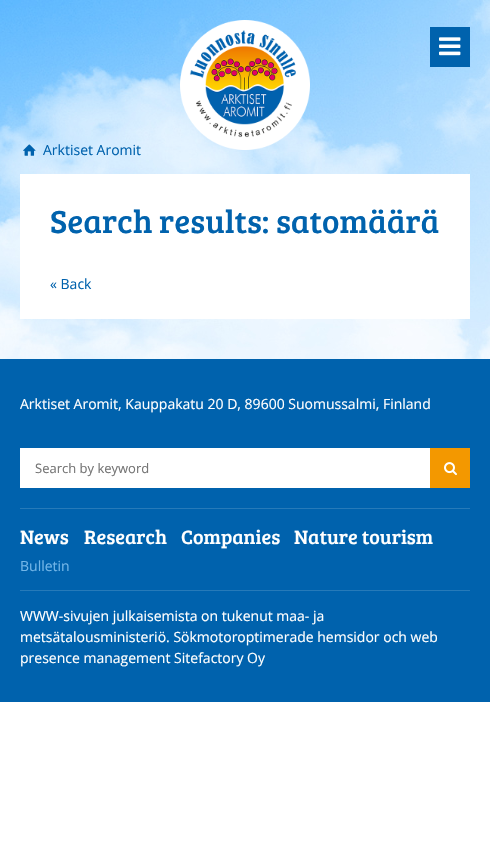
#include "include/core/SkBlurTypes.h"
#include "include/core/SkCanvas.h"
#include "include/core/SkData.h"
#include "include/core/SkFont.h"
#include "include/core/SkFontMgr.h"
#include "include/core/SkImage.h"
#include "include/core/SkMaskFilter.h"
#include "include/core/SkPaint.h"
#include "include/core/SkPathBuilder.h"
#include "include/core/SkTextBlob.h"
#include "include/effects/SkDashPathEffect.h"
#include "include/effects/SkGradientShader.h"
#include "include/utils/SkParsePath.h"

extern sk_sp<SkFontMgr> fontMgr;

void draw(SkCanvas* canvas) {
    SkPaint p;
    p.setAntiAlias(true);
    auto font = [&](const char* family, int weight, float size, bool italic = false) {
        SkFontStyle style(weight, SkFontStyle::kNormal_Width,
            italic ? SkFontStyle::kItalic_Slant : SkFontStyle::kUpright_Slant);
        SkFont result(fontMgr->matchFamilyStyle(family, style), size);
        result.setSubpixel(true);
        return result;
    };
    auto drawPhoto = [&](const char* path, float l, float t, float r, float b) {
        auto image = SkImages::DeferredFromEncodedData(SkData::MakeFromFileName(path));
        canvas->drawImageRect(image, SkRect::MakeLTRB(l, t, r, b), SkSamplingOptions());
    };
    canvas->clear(0xFFFFFFFF);
    drawPhoto("media/1.png", 0, 0, 490, 359);
    drawPhoto("media/2.png", 180, 20, 310, 150);
    p.setColor(0xFF0062AD);
    canvas->drawRect(SkRect::MakeLTRB(430, 27, 470, 67), p);
    drawPhoto("media/3.png", 439, 37, 461, 56);
    drawPhoto("media/4.png", 23, 144, 36, 156);
    auto font1 = font("Open Sans", 400, 14);
    canvas->drawString("Arktiset Aromit", 43, 155, font1, p);
    p.setColor(0xFFFFFFFF);
    canvas->drawRect(SkRect::MakeLTRB(20, 174, 470, 319), p);
    auto font2 = font("Bree Serif", 400, 33);
    p.setColor(0xFF0062AD);
    canvas->drawString("Search results: satomäärä", 50, 233, font2, p);
    canvas->drawString("« Back", 50, 289, font1, p);
    canvas->drawRect(SkRect::MakeLTRB(0, 359, 490, 702), p);
    p.setColor(0xFFFFFFFF);
    canvas->drawString("Arktiset Aromit, Kauppakatu 20 D, 89600 Suomussalmi, Finland", 20, 409, font1, p);
    canvas->drawRect(SkRect::MakeLTRB(20, 448, 430, 488), p);
    auto font3 = font("Open Sans", 400, 13);
    p.setColor(0xFF757575);
    canvas->drawString("Search by keyword", 35, 473, font3, p);
    p.setColor(0xFFF39800);
    canvas->drawRect(SkRect::MakeLTRB(430, 448, 470, 488), p);
    drawPhoto("media/5.png", 444, 462, 457, 476);
    p.setColor(0xFF267AB9);
    canvas->drawRect(SkRect::MakeLTRB(20, 508, 470, 509), p);
    auto font4 = font("Bree Serif", 400, 20);
    p.setColor(0xFFFFFFFF);
    canvas->drawString("News", 20, 544, font4, p);
    p.setColor(0xFF73B6E8);
    canvas->drawString("Bulletin", 20, 571, font1, p);
    p.setColor(0xFFFFFFFF);
    {
        const struct { const char* s; float x, y; } items[] = {
            {"Research", 84, 544},
            {"Companies", 181, 544},
            {"Nature tourism", 294, 544},
        };
        for (auto [s, x, y] : items) {
            canvas->drawString(s, x, y, font4, p);
        }
    }
    p.setColor(0xFF267AB9);
    canvas->drawRect(SkRect::MakeLTRB(20, 590, 470, 591), p);
    p.setColor(0xFFFFFFFF);
    {
        const struct { const char* s; float x, y; } items[] = {
            {"WWW-sivujen julkaisemista on tukenut maa- ja", 20, 621},
            {"metsätalousministeriö. Sökmotoroptimerade hemsidor och web", 20, 642},
            {"presence management Sitefactory Oy", 20, 663},
        };
        for (auto [s, x, y] : items) {
            canvas->drawString(s, x, y, font1, p);
        }
    }
}
